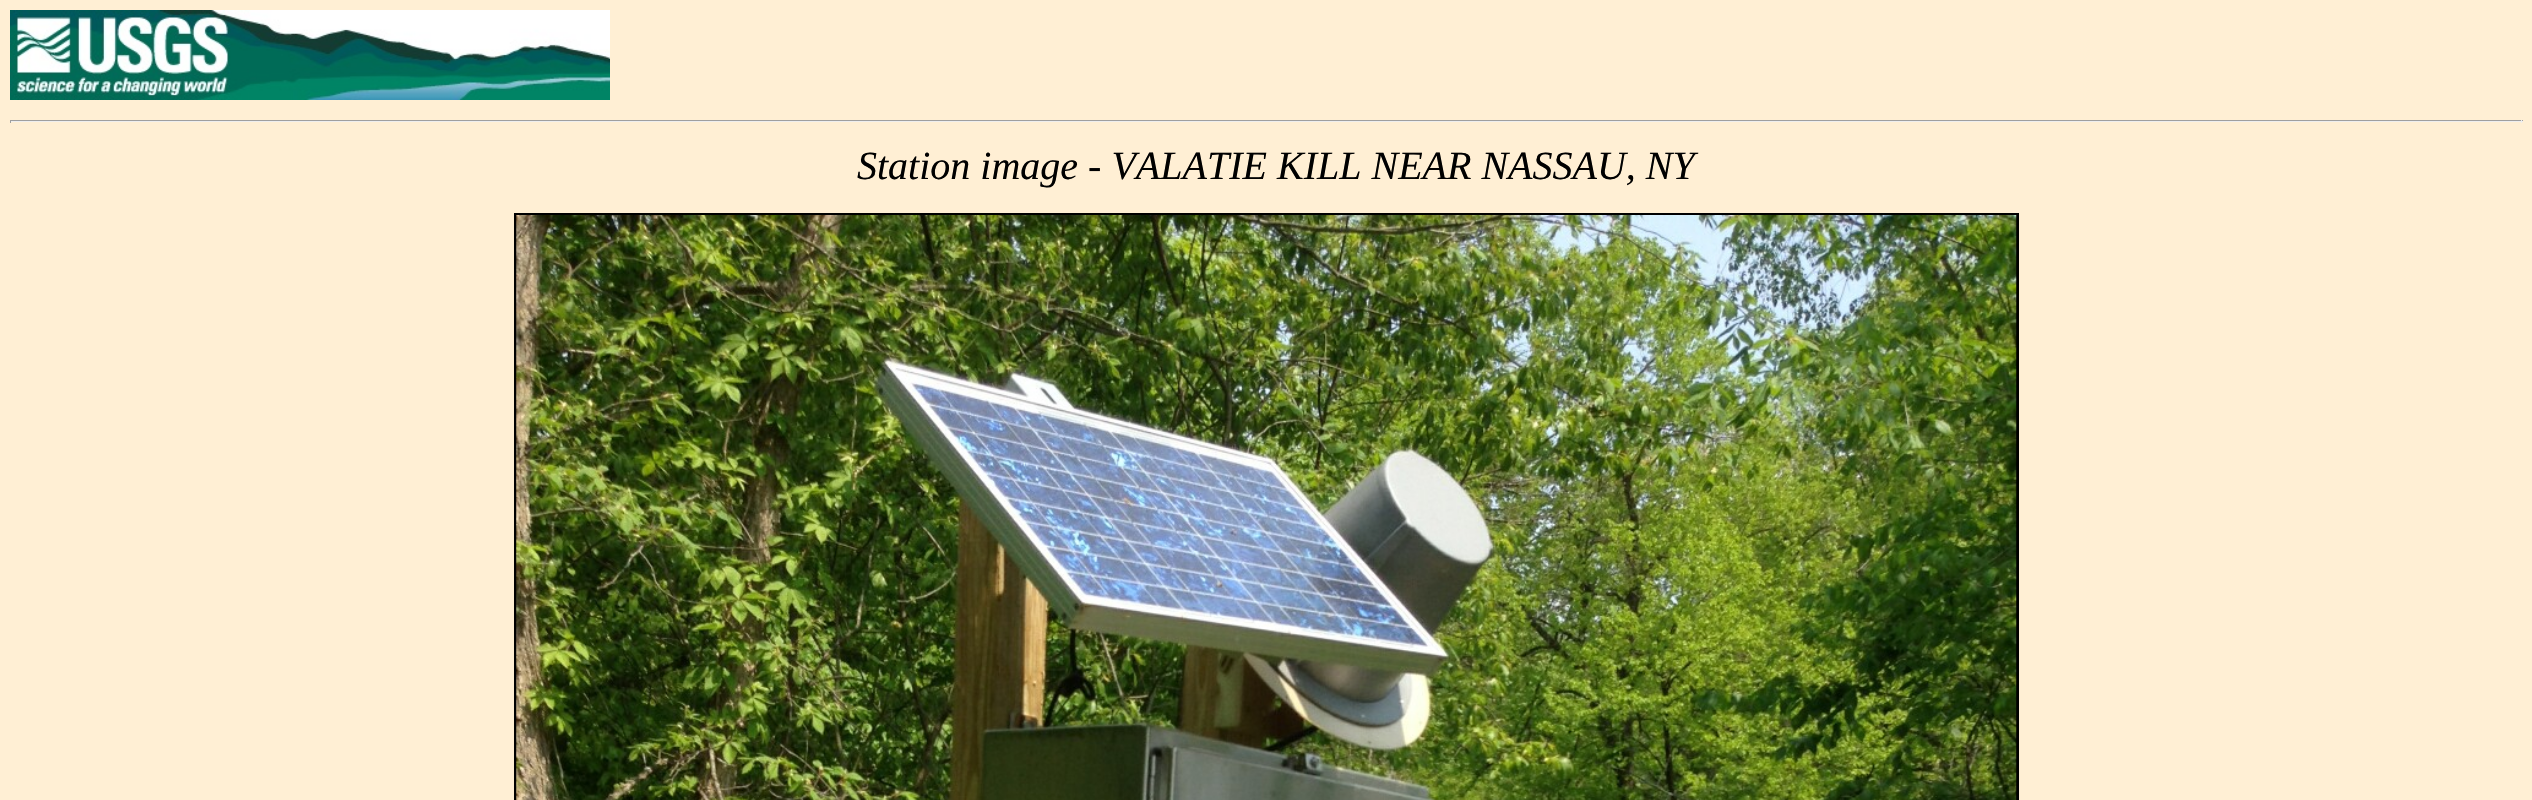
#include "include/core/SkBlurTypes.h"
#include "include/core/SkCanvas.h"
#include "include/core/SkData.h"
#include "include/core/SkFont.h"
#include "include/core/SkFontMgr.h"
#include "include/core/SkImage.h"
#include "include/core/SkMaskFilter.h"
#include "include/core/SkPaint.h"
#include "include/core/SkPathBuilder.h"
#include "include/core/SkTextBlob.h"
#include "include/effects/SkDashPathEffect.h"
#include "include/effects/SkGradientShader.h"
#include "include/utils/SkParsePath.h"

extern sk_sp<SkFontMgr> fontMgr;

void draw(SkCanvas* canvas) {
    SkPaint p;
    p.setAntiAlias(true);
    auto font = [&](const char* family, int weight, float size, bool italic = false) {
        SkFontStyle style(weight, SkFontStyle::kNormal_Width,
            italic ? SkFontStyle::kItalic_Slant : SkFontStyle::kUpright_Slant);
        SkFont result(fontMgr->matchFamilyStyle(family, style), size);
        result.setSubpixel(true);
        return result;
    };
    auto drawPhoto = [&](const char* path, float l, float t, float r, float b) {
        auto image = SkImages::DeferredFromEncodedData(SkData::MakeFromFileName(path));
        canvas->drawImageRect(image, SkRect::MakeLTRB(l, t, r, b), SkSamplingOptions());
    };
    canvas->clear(0xFFFFEFD4);
    drawPhoto("media/1.png", 10, 10, 610, 100);
    {
        const struct { float l, t, r, b; SkColor color; } items[] = {
            {10, 120, 2523, 121, 0xFF9F9F9F},
            {2521, 120, 2522, 123, 0xFFEEEEEE},
            {10, 121, 2523, 122, 0xFFEEEEEE},
            {10, 120, 11, 123, 0xFF9F9F9F},
        };
        for (auto [l, t, r, b, color] : items) {
            p.setColor(color);
            canvas->drawRect(SkRect::MakeLTRB(l, t, r, b), p);
        }
    }
    auto font1 = font("Liberation Serif", 400, 40, true);
    p.setColor(0xFF000000);
    canvas->drawString("Station image - VALATIE KILL NEAR NASSAU, NY", 857, 179, font1, p);
    p.setStyle(SkPaint::kStroke_Style);
    p.setStrokeWidth(3);
    canvas->drawRect(SkRect::MakeLTRB(515.5f, 214.5f, 2017.5f, 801.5f), p);
    drawPhoto("media/2.png", 516, 215, 2017, 800);
}
